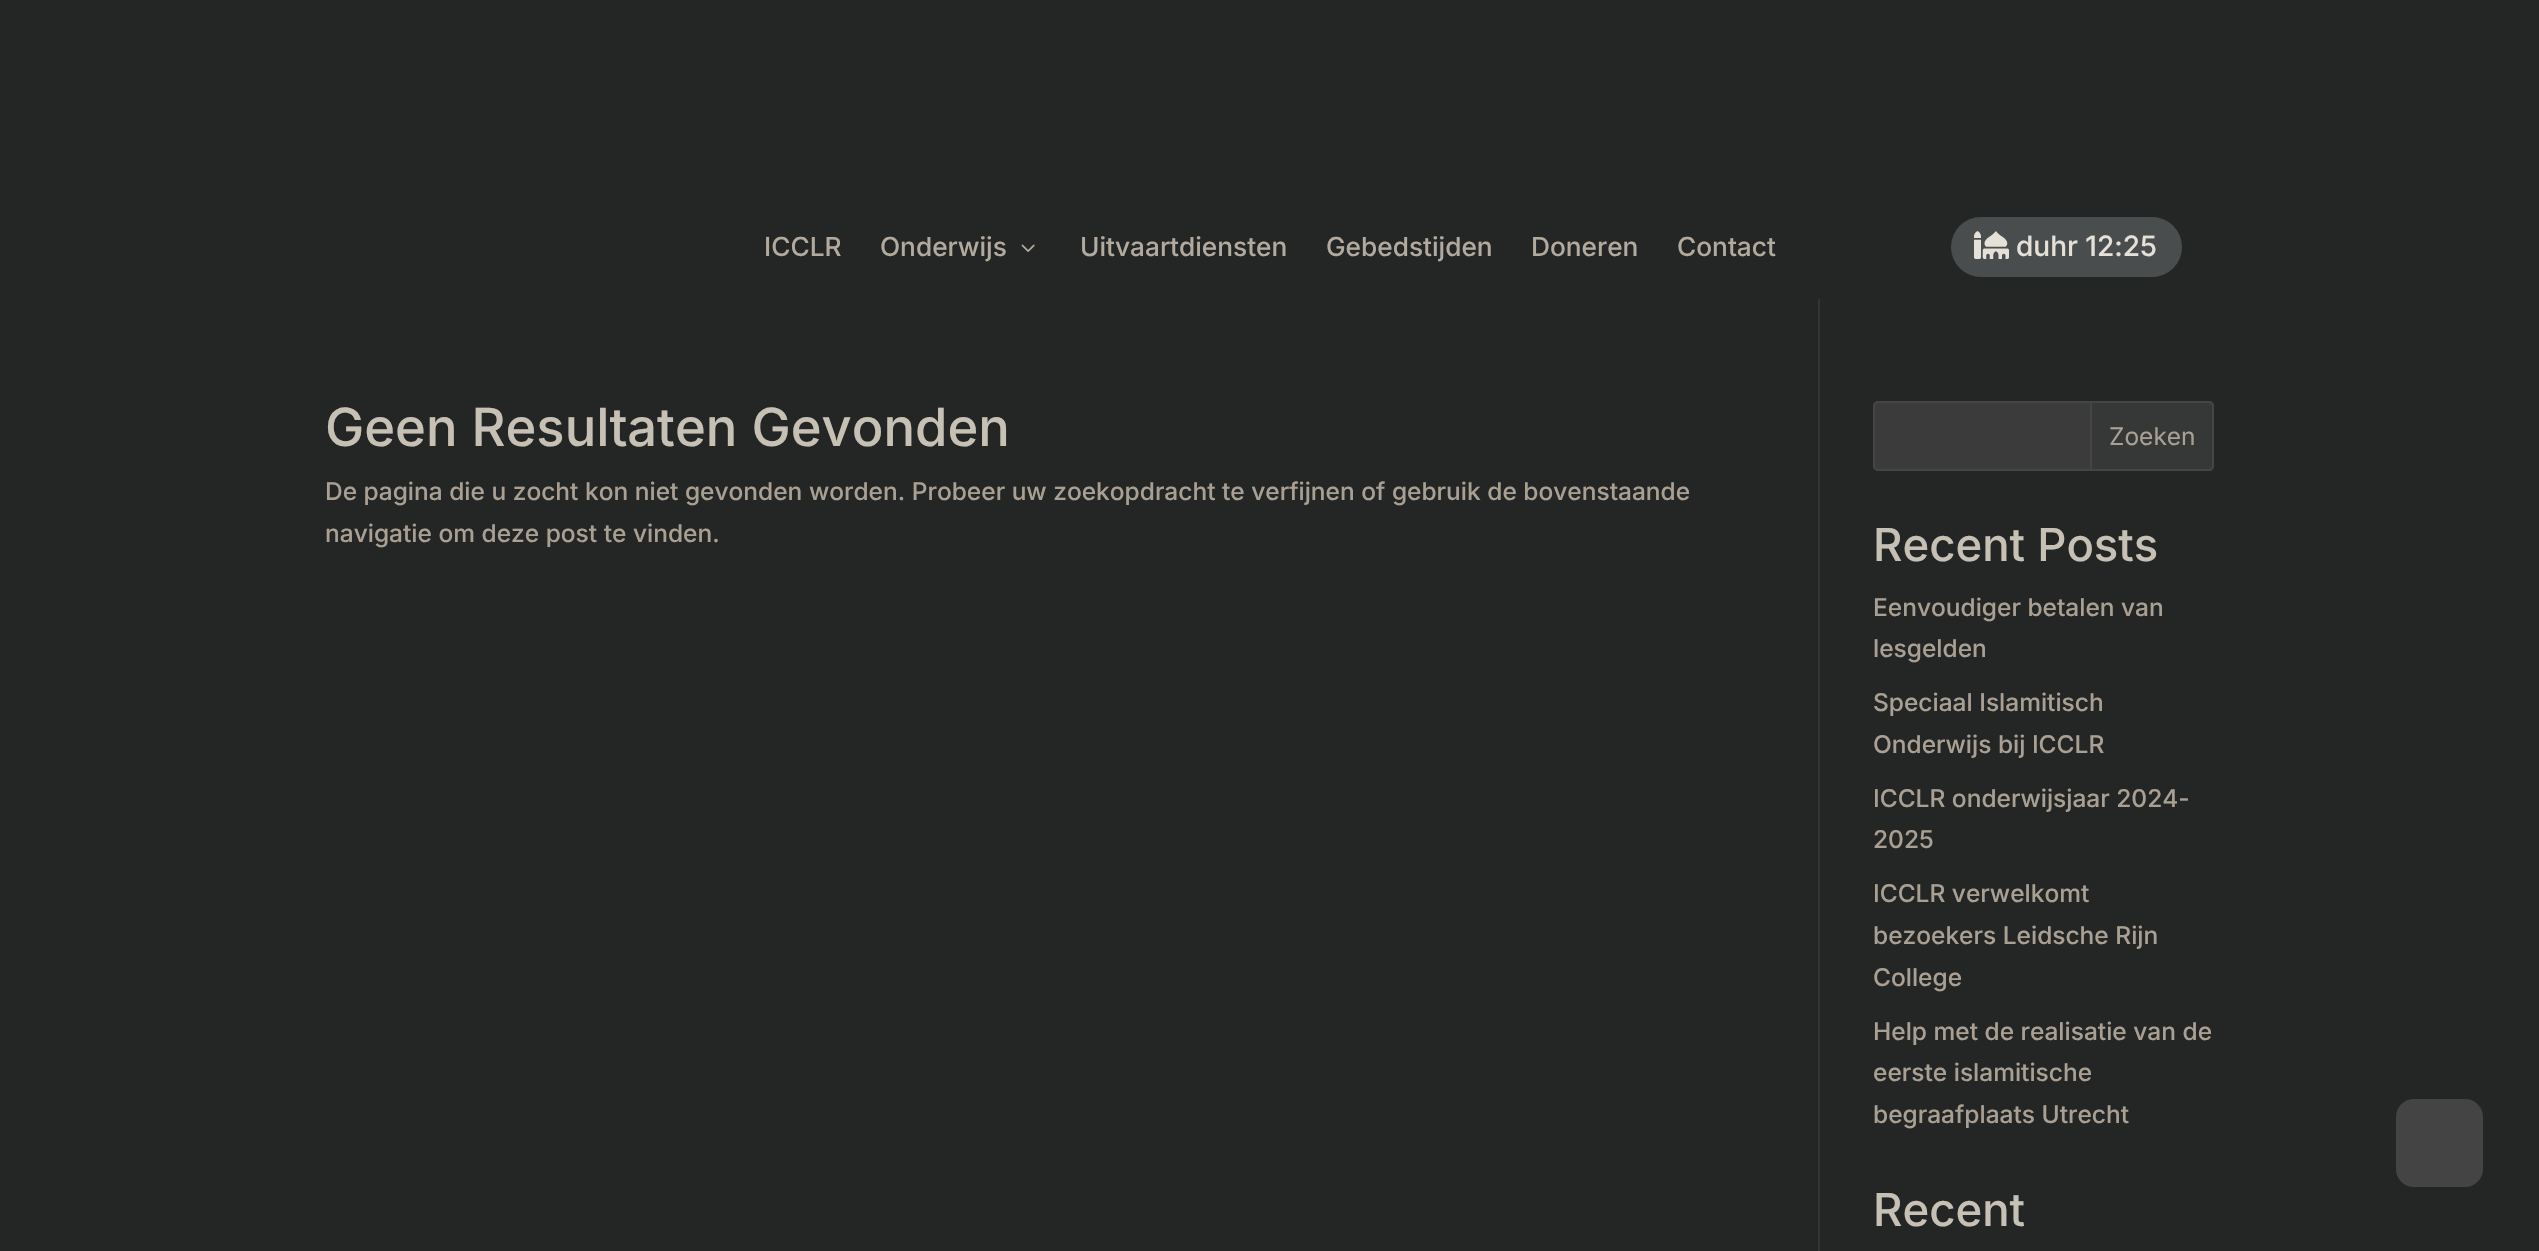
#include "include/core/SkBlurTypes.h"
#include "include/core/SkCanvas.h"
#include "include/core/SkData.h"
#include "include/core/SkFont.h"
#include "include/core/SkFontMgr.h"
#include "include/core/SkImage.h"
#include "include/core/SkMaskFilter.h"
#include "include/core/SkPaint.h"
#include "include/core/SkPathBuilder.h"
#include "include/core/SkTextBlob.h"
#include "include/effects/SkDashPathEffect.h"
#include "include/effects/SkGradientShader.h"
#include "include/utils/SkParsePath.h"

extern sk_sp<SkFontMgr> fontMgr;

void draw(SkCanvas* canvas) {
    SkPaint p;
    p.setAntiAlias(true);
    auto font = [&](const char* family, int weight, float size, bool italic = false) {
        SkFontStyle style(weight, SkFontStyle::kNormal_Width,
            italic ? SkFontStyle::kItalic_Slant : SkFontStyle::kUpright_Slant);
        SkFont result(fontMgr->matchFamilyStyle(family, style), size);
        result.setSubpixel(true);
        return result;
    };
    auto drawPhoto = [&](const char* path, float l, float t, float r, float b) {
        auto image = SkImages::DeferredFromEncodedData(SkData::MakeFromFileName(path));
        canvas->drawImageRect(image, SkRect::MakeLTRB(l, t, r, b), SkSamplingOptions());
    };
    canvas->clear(0xFF242525);
    auto font1 = font("Inter", 500, 26.25f);
    p.setColor(0xFFB2AA9E);
    canvas->drawString("ICCLR", 764, 256, font1, p);
    canvas->drawString("Onderwijs", 880, 256, font1, p);
    drawPhoto("media/1.png", 1021, 244, 1035, 252);
    {
        const struct { const char* s; float x, y; } items[] = {
            {"Uitvaartdiensten", 1080, 256},
            {"Gebedstijden", 1326, 256},
            {"Doneren", 1531, 256},
            {"Contact", 1677, 256},
        };
        for (auto [s, x, y] : items) {
            canvas->drawString(s, x, y, font1, p);
        }
    }
    p.setColor(0xFF4A4D4E);
    canvas->drawRoundRect(SkRect::MakeLTRB(1951, 217, 2182, 277), 30, 30, p);
    drawPhoto("media/2.png", 1974, 231, 2009, 259);
    auto font2 = font("Inter", 500, 28);
    p.setColor(0xFFE5E0D8);
    canvas->drawString("duhr 12:25", 2016, 256, font2, p);
    p.setColor(0xFF333535);
    canvas->drawRect(SkRect::MakeLTRB(1818, 299, 1820, 1251), p);
    auto font3 = font("Inter", 500, 52.5f);
    p.setColor(0xFFC7C0B5);
    canvas->drawString("Geen Resultaten Gevonden", 325, 446, font3, p);
    auto font4 = font("Inter", 500, 24.5f);
    p.setColor(0xFFA9A093);
    canvas->drawString("De pagina die u zocht kon niet gevonden worden. Probeer uw zoekopdracht te verfijnen of gebruik de bovenstaande", 325, 500, font4, p);
    canvas->drawString("navigatie om deze post te vinden.", 325, 542, font4, p);
    p.setColor(0xFF3B3B3B);
    canvas->drawRoundRect(SkRect::MakeLTRB(1874, 402, 2213, 470), 4, 4, p);
    p.setStyle(SkPaint::kStroke_Style);
    p.setStrokeWidth(2);
    p.setColor(0xFF444646);
    canvas->drawRoundRect(SkRect::MakeLTRB(1874, 402, 2213, 470), 4, 4, p);
    p.setStyle(SkPaint::kFill_Style);
    p.setColor(0xFF363838);
    canvas->drawPath(SkPathBuilder().moveTo(2091, 402).lineTo(2209, 402).cubicTo(2211, 402, 2213, 404, 2213, 406).lineTo(2213, 466).cubicTo(2213, 468, 2211, 470, 2209, 470).lineTo(2091, 470).close().detach(), p);
    p.setStyle(SkPaint::kStroke_Style);
    p.setColor(0xFF444646);
    canvas->drawPath(SkPathBuilder().moveTo(2091, 402).lineTo(2209, 402).cubicTo(2211, 402, 2213, 404, 2213, 406).lineTo(2213, 466).cubicTo(2213, 468, 2211, 470, 2209, 470).lineTo(2091, 470).close().detach(), p);
    auto font5 = font("Inter", 400, 24.5f);
    p.setStyle(SkPaint::kFill_Style);
    p.setColor(0xFFA9A093);
    canvas->drawString("Zoeken", 2109, 445, font5, p);
    auto font6 = font("Inter", 500, 45.5f);
    p.setColor(0xFFC7C0B5);
    canvas->drawString("Recent Posts", 1873, 561, font6, p);
    p.setColor(0xFFA9A093);
    {
        const struct { const char* s; float x, y; } items[] = {
            {"Eenvoudiger betalen van", 1873, 616},
            {"lesgelden", 1873, 657},
            {"Speciaal Islamitisch", 1873, 711},
            {"Onderwijs bij ICCLR", 1873, 753},
            {"ICCLR onderwijsjaar 2024-", 1873, 807},
            {"2025", 1873, 848},
            {"ICCLR verwelkomt", 1873, 902},
            {"bezoekers Leidsche Rijn", 1873, 944},
            {"College", 1873, 986},
            {"Help met de realisatie van de", 1873, 1040},
            {"eerste islamitische", 1873, 1081},
            {"begraafplaats Utrecht", 1873, 1123},
        };
        for (auto [s, x, y] : items) {
            canvas->drawString(s, x, y, font4, p);
        }
    }
    p.setColor(0xFFC7C0B5);
    canvas->drawString("Recent", 1873, 1226, font6, p);
    p.setColor(0xFF444444);
    canvas->drawRoundRect(SkRect::MakeLTRB(2396, 1099, 2483, 1187), 18, 18, p);
}
